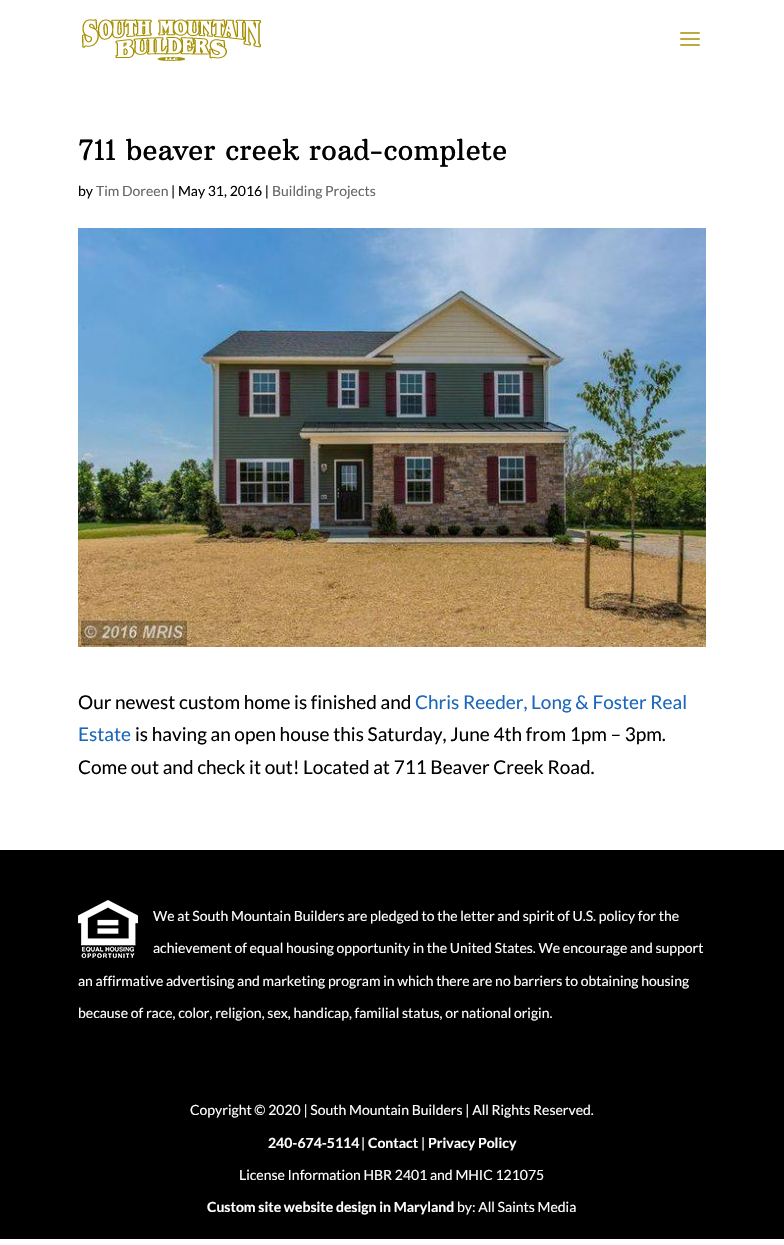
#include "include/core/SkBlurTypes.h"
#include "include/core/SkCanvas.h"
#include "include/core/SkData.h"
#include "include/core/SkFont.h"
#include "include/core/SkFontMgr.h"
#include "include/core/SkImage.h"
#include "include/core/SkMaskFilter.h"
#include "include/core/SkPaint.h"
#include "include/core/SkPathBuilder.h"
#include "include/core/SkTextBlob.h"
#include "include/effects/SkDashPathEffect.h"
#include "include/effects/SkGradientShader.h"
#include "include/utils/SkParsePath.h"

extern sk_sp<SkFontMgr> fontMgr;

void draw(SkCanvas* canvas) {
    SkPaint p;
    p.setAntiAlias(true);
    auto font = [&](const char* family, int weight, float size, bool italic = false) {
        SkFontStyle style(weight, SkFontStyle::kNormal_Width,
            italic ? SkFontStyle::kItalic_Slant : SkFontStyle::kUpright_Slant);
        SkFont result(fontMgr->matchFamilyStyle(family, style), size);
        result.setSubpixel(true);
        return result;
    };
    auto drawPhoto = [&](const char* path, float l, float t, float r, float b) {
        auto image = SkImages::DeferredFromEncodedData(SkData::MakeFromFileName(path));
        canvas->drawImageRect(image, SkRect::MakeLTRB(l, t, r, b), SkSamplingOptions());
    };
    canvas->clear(0xFFFFFFFF);
    drawPhoto("media/1.png", 82, 19, 261, 61);
    drawPhoto("media/2.png", 680, 32, 700, 46);
    auto font1 = font("Arbutus Slab", 400, 28);
    p.setColor(0xFF000000);
    canvas->drawString("711 beaver creek road-complete", 78, 160, font1, p);
    auto font2 = font("Lato", 400, 14);
    canvas->drawString("by", 78, 196, font2, p);
    p.setColor(0xFF666666);
    canvas->drawString("Tim Doreen", 96, 196, font2, p);
    p.setColor(0xFF000000);
    canvas->drawString("| May 31, 2016 |", 171, 196, font2, p);
    p.setColor(0xFF666666);
    canvas->drawString("Building Projects", 272, 196, font2, p);
    drawPhoto("media/3.png", 78, 228, 706, 647);
    auto font3 = font("Lato", 400, 19);
    p.setColor(0xFF000000);
    canvas->drawString("Our newest custom home is finished and", 78, 709, font3, p);
    p.setColor(0xFF1C67BC);
    canvas->drawString("Chris Reeder, Long & Foster Real", 415, 709, font3, p);
    canvas->drawString("Estate", 78, 741, font3, p);
    p.setColor(0xFF000000);
    canvas->drawString("is having an open house this Saturday, June 4th from 1pm – 3pm.", 135, 741, font3, p);
    canvas->drawString("Come out and check it out! Located at 711 Beaver Creek Road.", 78, 774, font3, p);
    canvas->drawRect(SkRect::MakeLTRB(0, 850, 784, 1239), p);
    drawPhoto("media/4.png", 78, 900, 138, 958);
    p.setColor(0xFFFFFFFF);
    {
        const struct { const char* s; float x, y; } items[] = {
            {"We at South Mountain Builders are pledged to the letter and spirit of U.S. policy for the", 153, 921},
            {"achievement of equal housing opportunity in the United States. We encourage and support", 153, 953},
            {"an affirmative advertising and marketing program in which there are no barriers to obtaining housing", 78, 986},
            {"because of race, color, religion, sex, handicap, familial status, or national origin.", 78, 1018},
            {"Copyright © 2020 | South Mountain Builders | All Rights Reserved.", 190, 1115},
        };
        for (auto [s, x, y] : items) {
            canvas->drawString(s, x, y, font2, p);
        }
    }
    auto font4 = font("Lato", 700, 14);
    canvas->drawString("240-674-5114", 268, 1148, font4, p);
    canvas->drawString("|", 361, 1148, font2, p);
    canvas->drawString("Contact", 368, 1148, font4, p);
    canvas->drawString("|", 421, 1148, font2, p);
    canvas->drawString("Privacy Policy", 428, 1148, font4, p);
    canvas->drawString("License Information HBR 2401 and MHIC 121075", 239, 1180, font2, p);
    canvas->drawString("Custom site website design in Maryland", 207, 1212, font4, p);
    canvas->drawString("by: All Saints Media", 457, 1212, font2, p);
}
